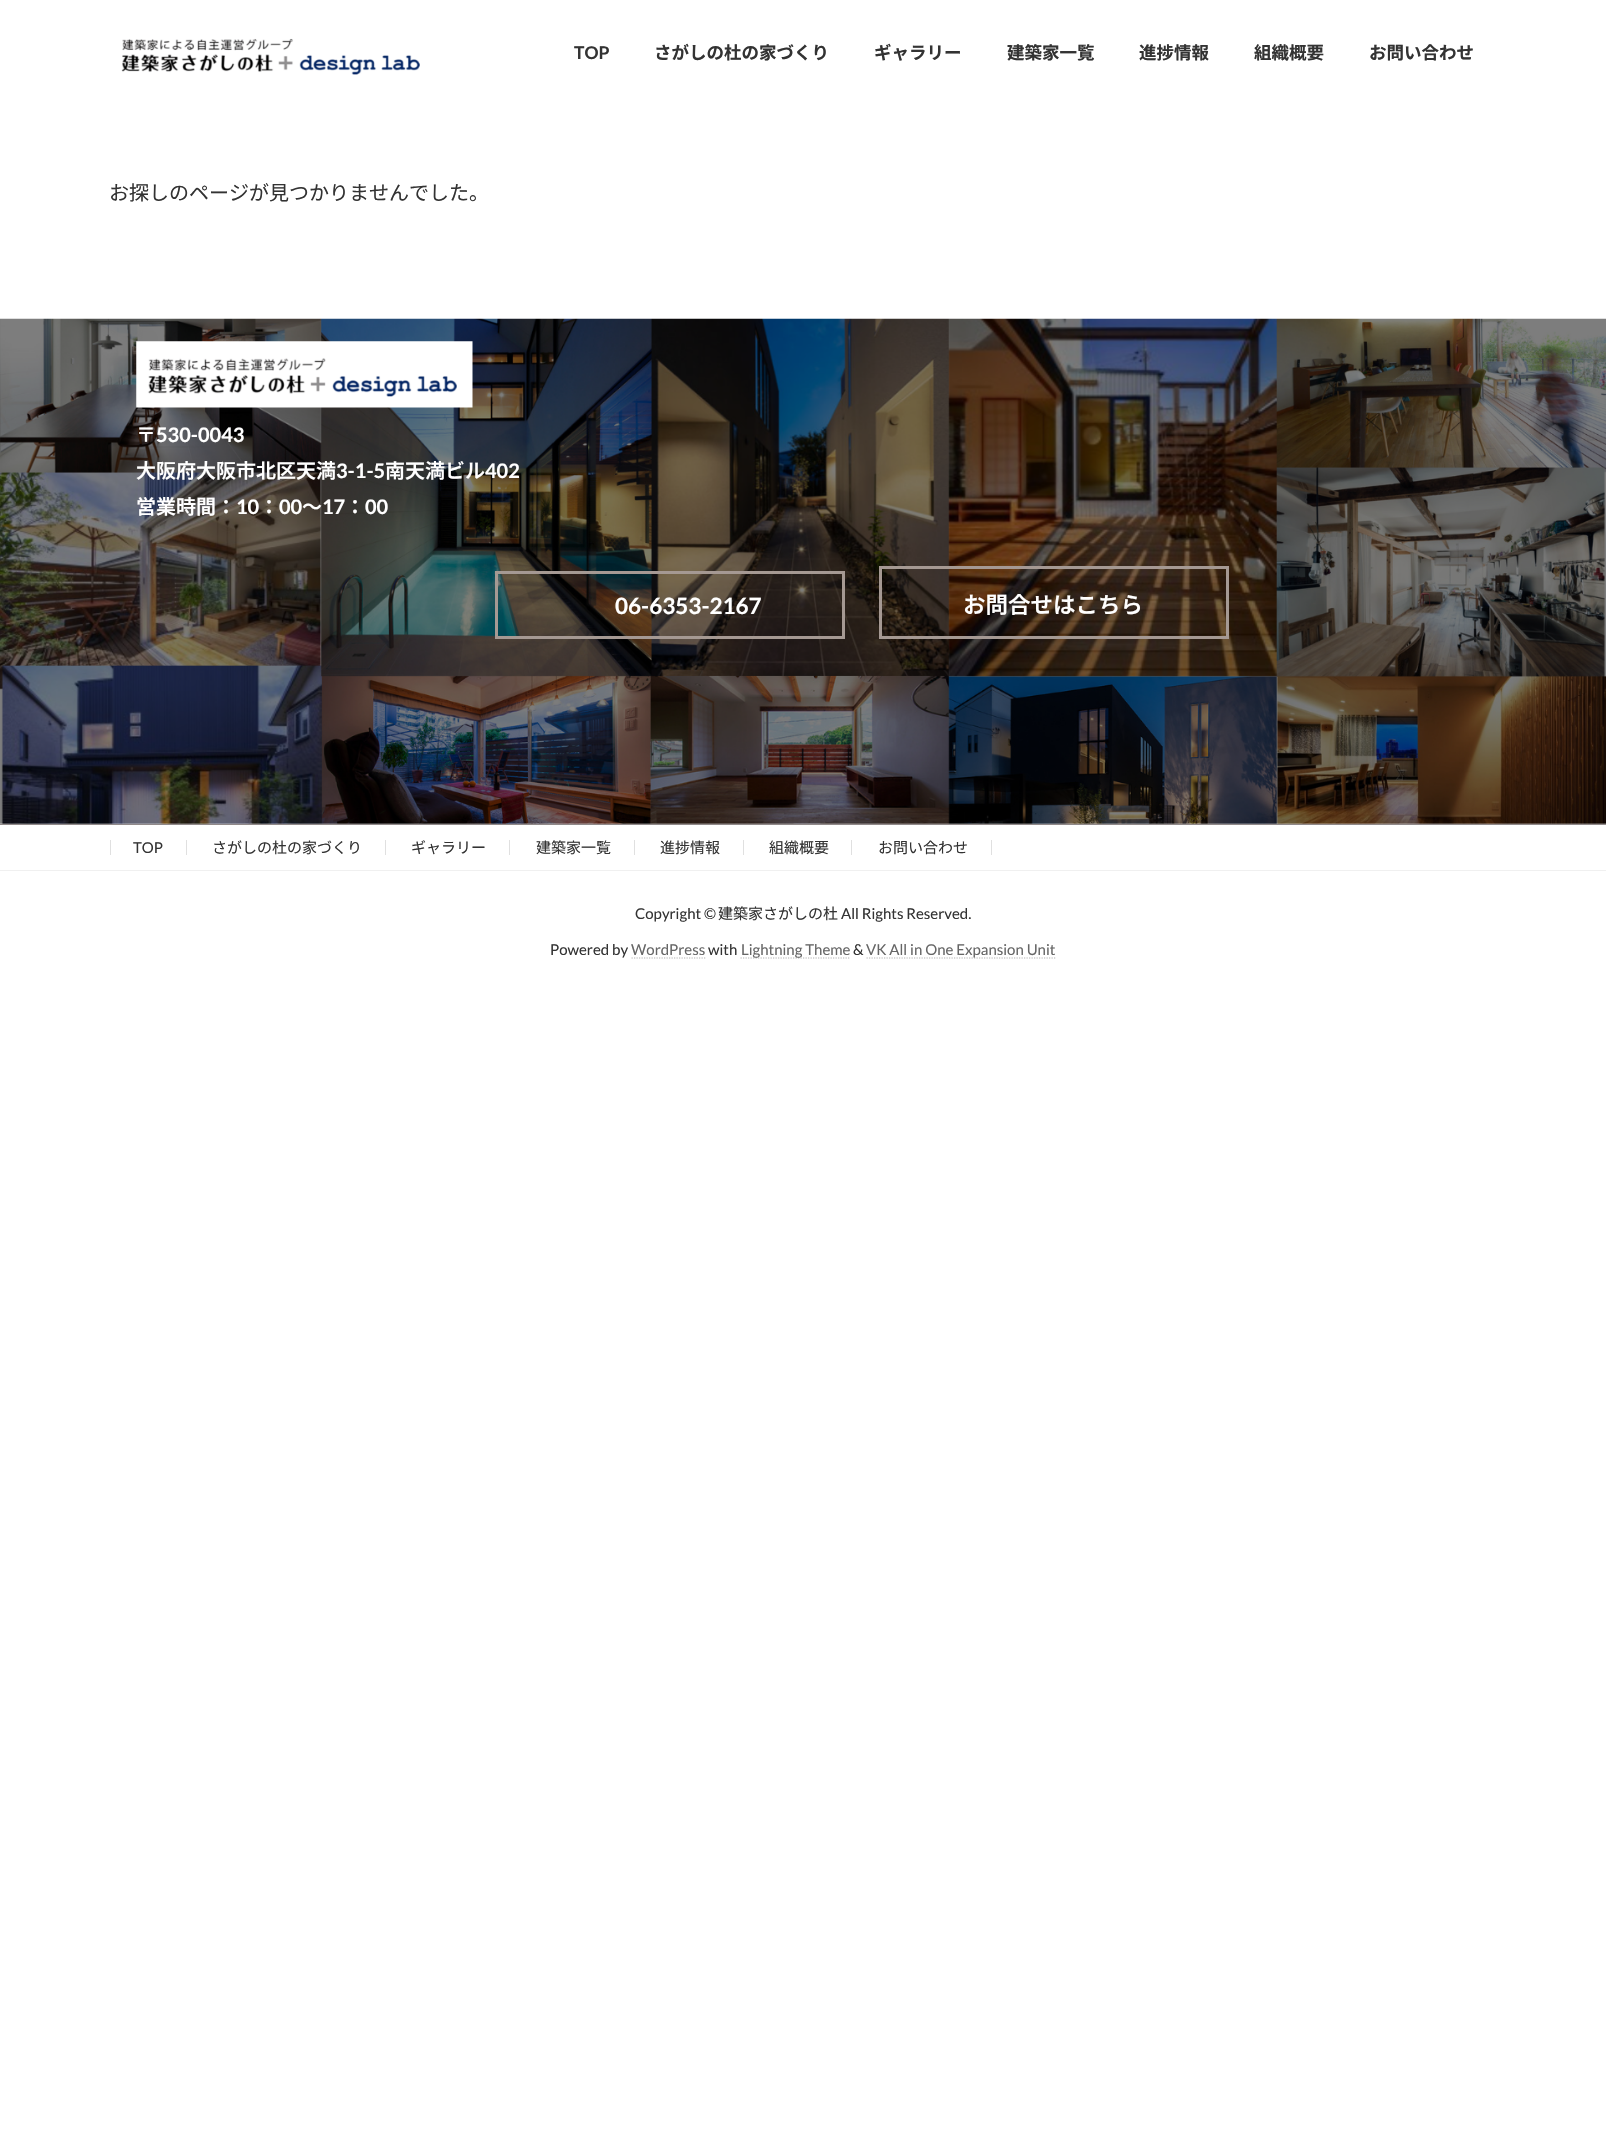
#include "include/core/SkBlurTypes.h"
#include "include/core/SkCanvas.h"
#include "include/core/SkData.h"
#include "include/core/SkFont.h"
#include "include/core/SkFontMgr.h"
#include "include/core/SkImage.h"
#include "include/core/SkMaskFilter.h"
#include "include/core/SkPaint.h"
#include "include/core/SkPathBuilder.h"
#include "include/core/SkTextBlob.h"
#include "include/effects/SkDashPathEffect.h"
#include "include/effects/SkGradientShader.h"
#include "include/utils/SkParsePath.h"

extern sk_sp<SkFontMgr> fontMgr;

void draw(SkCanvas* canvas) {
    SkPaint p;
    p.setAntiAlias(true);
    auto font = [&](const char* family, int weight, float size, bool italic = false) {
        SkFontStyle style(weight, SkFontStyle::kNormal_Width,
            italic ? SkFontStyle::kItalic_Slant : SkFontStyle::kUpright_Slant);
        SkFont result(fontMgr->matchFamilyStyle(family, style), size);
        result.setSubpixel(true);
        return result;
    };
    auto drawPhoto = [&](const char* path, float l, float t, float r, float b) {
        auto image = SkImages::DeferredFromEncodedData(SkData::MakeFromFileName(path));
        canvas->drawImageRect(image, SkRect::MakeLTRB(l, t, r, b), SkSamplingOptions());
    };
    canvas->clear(0xFFFFFFFF);
    drawPhoto("media/1.png", 121, 38, 420, 75);
    auto font1 = font("Lato", 700, 17.5f);
    p.setColor(0xFF333333);
    canvas->drawString("TOP", 574, 59, font1, p);
    auto font2 = font("Noto Sans JP", 700, 17.5f);
    {
        const struct { const char* s; float x, y; } items[] = {
            {"さがしの杜の家づくり", 654, 59},
            {"ギャラリー", 874, 59},
            {"建築家一覧", 1007, 59},
            {"進捗情報", 1139, 59},
            {"組織概要", 1254, 59},
            {"お問い合わせ", 1369, 59},
        };
        for (auto [s, x, y] : items) {
            canvas->drawString(s, x, y, font2, p);
        }
    }
    auto font3 = font("Noto Sans JP", 400, 20);
    canvas->drawString("お探しのページが見つかりませんでした。", 109, 200, font3, p);
    drawPhoto("media/2.png", 0, 318, 1606, 824);
    drawPhoto("media/3.png", 136, 341, 473, 408);
    auto font4 = font("Noto Sans JP", 600, 20);
    p.setColor(0xFFFFFFFF);
    canvas->drawString("〒", 136, 442, font4, p);
    auto font5 = font("Lato", 700, 20);
    canvas->drawString("530-0043", 156, 442, font5, p);
    canvas->drawString("大阪府大阪市北区天満", 136, 478, font4, p);
    canvas->drawString("3-1-5", 336, 478, font5, p);
    canvas->drawString("南天満ビル", 385, 478, font4, p);
    canvas->drawString("402", 485, 478, font5, p);
    canvas->drawString("営業時間：", 136, 514, font4, p);
    canvas->drawString("10", 236, 514, font5, p);
    canvas->drawString("：", 259, 514, font4, p);
    canvas->drawString("00", 279, 514, font5, p);
    canvas->drawString("〜", 302, 514, font4, p);
    canvas->drawString("17", 322, 514, font5, p);
    canvas->drawString("：", 345, 514, font4, p);
    canvas->drawString("00", 365, 514, font5, p);
    p.setStyle(SkPaint::kStroke_Style);
    p.setStrokeWidth(3);
    p.setColor(0xFFA59993);
    canvas->drawRect(SkRect::MakeLTRB(496.5f, 572.5f, 843.5f, 637.5f), p);
    auto font6 = font("Lato", 700, 22.5f);
    p.setStyle(SkPaint::kFill_Style);
    p.setColor(0xFFFFFFFF);
    canvas->drawString("06-6353-2167", 615, 614, font6, p);
    p.setStyle(SkPaint::kStroke_Style);
    p.setColor(0xFFA59993);
    canvas->drawRect(SkRect::MakeLTRB(880.5f, 567.5f, 1227.5f, 637.5f), p);
    auto font7 = font("Noto Sans JP", 600, 22.5f);
    p.setStyle(SkPaint::kFill_Style);
    p.setColor(0xFFFFFFFF);
    canvas->drawString("お問合せはこちら", 963, 613, font7, p);
    {
        const struct { float l, t, r, b; SkColor color; } items[] = {
            {0, 824, 1606, 825, 0xFF918A8A},
            {0, 870, 1606, 871, 0xFFF0F0F0},
            {186, 840, 187, 855, 0xFFE0E0E0},
            {110, 840, 111, 855, 0xFFE0E0E0},
        };
        for (auto [l, t, r, b, color] : items) {
            p.setColor(color);
            canvas->drawRect(SkRect::MakeLTRB(l, t, r, b), p);
        }
    }
    auto font8 = font("Lato", 400, 15);
    p.setColor(0xFF333333);
    canvas->drawString("TOP", 133, 853, font8, p);
    p.setColor(0xFFE0E0E0);
    canvas->drawRect(SkRect::MakeLTRB(385, 840, 386, 855), p);
    auto font9 = font("Noto Sans JP", 400, 15);
    p.setColor(0xFF333333);
    canvas->drawString("さがしの杜の家づくり", 212, 853, font9, p);
    p.setColor(0xFFE0E0E0);
    canvas->drawRect(SkRect::MakeLTRB(509, 840, 510, 855), p);
    p.setColor(0xFF333333);
    canvas->drawString("ギャラリー", 411, 853, font9, p);
    p.setColor(0xFFE0E0E0);
    canvas->drawRect(SkRect::MakeLTRB(634, 840, 635, 855), p);
    p.setColor(0xFF333333);
    canvas->drawString("建築家一覧", 536, 853, font9, p);
    p.setColor(0xFFE0E0E0);
    canvas->drawRect(SkRect::MakeLTRB(743, 840, 744, 855), p);
    p.setColor(0xFF333333);
    canvas->drawString("進捗情報", 660, 853, font9, p);
    p.setColor(0xFFE0E0E0);
    canvas->drawRect(SkRect::MakeLTRB(851, 840, 852, 855), p);
    p.setColor(0xFF333333);
    canvas->drawString("組織概要", 769, 853, font9, p);
    p.setColor(0xFFE0E0E0);
    canvas->drawRect(SkRect::MakeLTRB(991, 840, 992, 855), p);
    p.setColor(0xFF333333);
    canvas->drawString("お問い合わせ", 878, 853, font9, p);
    canvas->drawString("Copyright ©", 635, 919, font8, p);
    canvas->drawString("建築家さがしの杜", 718, 919, font9, p);
    canvas->drawString("All Rights Reserved.", 841, 919, font8, p);
    canvas->drawString("Powered by", 550, 955, font8, p);
    p.setColor(0xFF666666);
    canvas->drawString("WordPress", 631, 955, font8, p);
    p.setStyle(SkPaint::kStroke_Style);
    p.setStrokeWidth(1.2f);
    p.setColor(0xFFB3B3B3);
    p.setPathEffect(SkDashPathEffect::Make({{1.25f, 1.25f}}, 0));
    canvas->drawPath(SkPathBuilder().moveTo(631.5f, 958).lineTo(705.5f, 958).detach(), p);
    p.setPathEffect(nullptr);
    p.setStyle(SkPaint::kFill_Style);
    p.setColor(0xFF333333);
    canvas->drawString("with", 708, 955, font8, p);
    p.setStyle(SkPaint::kStroke_Style);
    p.setColor(0xFFB3B3B3);
    p.setPathEffect(SkDashPathEffect::Make({{1.25f, 1.25f}}, 0));
    canvas->drawPath(SkPathBuilder().moveTo(740.5f, 958).lineTo(850, 958).detach(), p);
    p.setPathEffect(nullptr);
    p.setStyle(SkPaint::kFill_Style);
    p.setColor(0xFF666666);
    canvas->drawString("Lightning Theme", 741, 955, font8, p);
    p.setColor(0xFF333333);
    canvas->drawString("&", 853, 955, font8, p);
    p.setStyle(SkPaint::kStroke_Style);
    p.setColor(0xFFB3B3B3);
    p.setPathEffect(SkDashPathEffect::Make({{1.25f, 1.25f}}, 0));
    canvas->drawPath(SkPathBuilder().moveTo(866.5f, 958).lineTo(1056, 958).detach(), p);
    p.setPathEffect(nullptr);
    p.setStyle(SkPaint::kFill_Style);
    p.setColor(0xFF666666);
    canvas->drawString("VK All in One Expansion Unit", 866, 955, font8, p);
}
